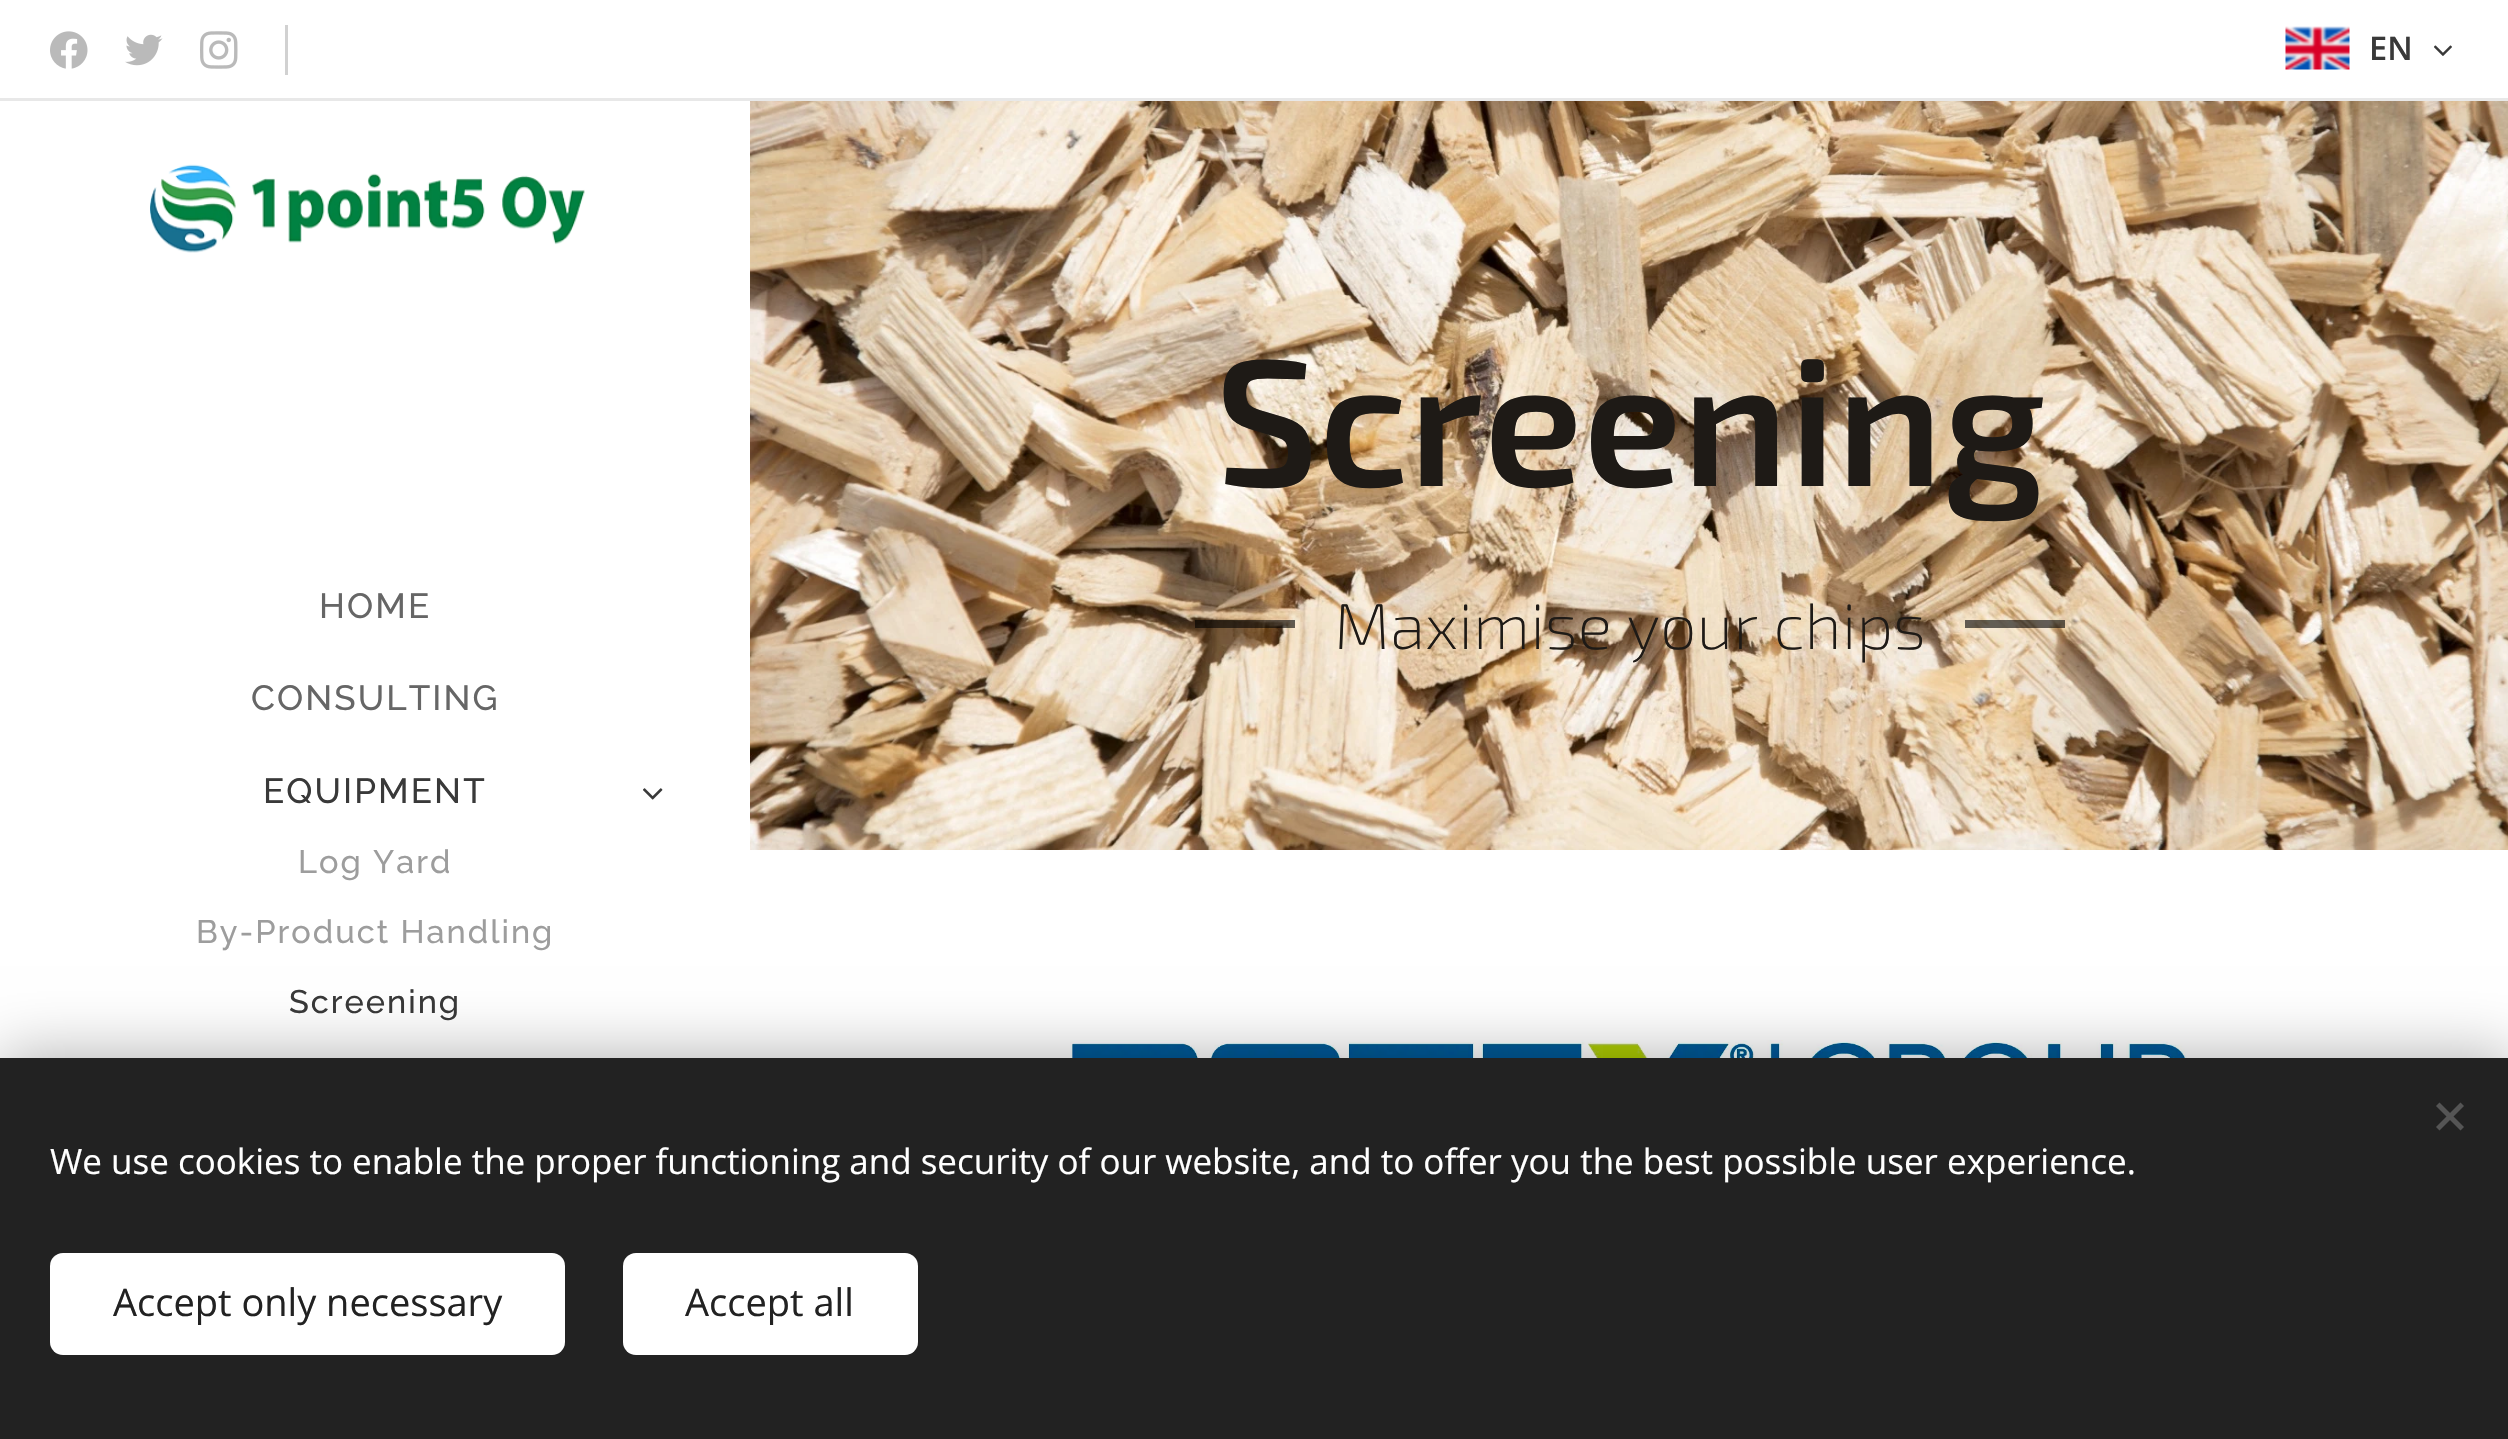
#include "include/core/SkBlurTypes.h"
#include "include/core/SkCanvas.h"
#include "include/core/SkData.h"
#include "include/core/SkFont.h"
#include "include/core/SkFontMgr.h"
#include "include/core/SkImage.h"
#include "include/core/SkMaskFilter.h"
#include "include/core/SkPaint.h"
#include "include/core/SkPathBuilder.h"
#include "include/core/SkTextBlob.h"
#include "include/effects/SkDashPathEffect.h"
#include "include/effects/SkGradientShader.h"
#include "include/utils/SkParsePath.h"

extern sk_sp<SkFontMgr> fontMgr;

void draw(SkCanvas* canvas) {
    SkPaint p;
    p.setAntiAlias(true);
    auto font = [&](const char* family, int weight, float size, bool italic = false) {
        SkFontStyle style(weight, SkFontStyle::kNormal_Width,
            italic ? SkFontStyle::kItalic_Slant : SkFontStyle::kUpright_Slant);
        SkFont result(fontMgr->matchFamilyStyle(family, style), size);
        result.setSubpixel(true);
        return result;
    };
    auto drawTracked = [&](const char* s, float x, float y, const SkFont& font, const SkPaint& ink, float letter, float word) {
        std::vector<SkGlyphID> glyphs(font.countText(s, strlen(s), SkTextEncoding::kUTF8));
        std::vector<float> xs(glyphs.size());
        font.textToGlyphs(s, strlen(s), SkTextEncoding::kUTF8, glyphs);
        font.getXPos(glyphs, xs, x);
        float extra = 0;
        for (size_t i = 0; i < glyphs.size(); i++) {
            xs[i] += extra;
            extra += letter + word * (glyphs[i] == font.unicharToGlyph(' '));
        }
        canvas->drawTextBlob(SkTextBlob::MakeFromPosHGlyphs(glyphs, xs, y, font), 0, 0, ink);
    };
    auto drawPhoto = [&](const char* path, float l, float t, float r, float b) {
        auto image = SkImages::DeferredFromEncodedData(SkData::MakeFromFileName(path));
        canvas->drawImageRect(image, SkRect::MakeLTRB(l, t, r, b), SkSamplingOptions());
    };
    canvas->clear(0xFFFFFFFF);
    drawPhoto("media/1.png", 50, 31, 88, 69);
    drawPhoto("media/2.png", 125, 34, 163, 66);
    drawPhoto("media/3.png", 200, 31, 238, 69);
    p.setColor(0xFFD1D1D1);
    canvas->drawRect(SkRect::MakeLTRB(285, 25, 288, 75), p);
    drawPhoto("media/4.png", 2285, 26, 2350, 70);
    auto font1 = font("Open Sans", 600, 32.5f);
    p.setColor(0xFF393939);
    canvas->drawString("EN", 2369, 60, font1, p);
    drawPhoto("media/5.png", 2434, 45, 2452, 56);
    p.setColor(0xFFE8E8E8);
    canvas->drawRect(SkRect::MakeLTRB(0, 98, 2508, 101), p);
    drawPhoto("media/6.png", 150, 164, 585, 253);
    auto font2 = font("Raleway", 500, 35);
    p.setColor(0xFF666666);
    drawTracked("HOME", 319, 618, font2, p, 2.1f, 0);
    drawTracked("CONSULTING", 251, 710, font2, p, 2.1f, 0);
    p.setColor(0xFF393939);
    drawTracked("EQUIPMENT", 263, 803, font2, p, 2.1f, 0);
    drawPhoto("media/7.png", 643, 788, 663, 800);
    auto font3 = font("Raleway", 500, 32.5f);
    p.setColor(0xFF9D9D9D);
    drawTracked("Log Yard", 298, 873, font3, p, 2, 0);
    drawTracked("By-Product Handling", 196, 943, font3, p, 2, 0);
    p.setColor(0xFF393939);
    drawTracked("Screening", 289, 1013, font3, p, 2, 0);
    drawPhoto("media/8.png", 750, 101, 2508, 850);
    auto font4 = font("Exo 2", 600, 180);
    p.setColor(0xFF1E1A16);
    canvas->drawString("Screening", 1215, 486, font4, p);
    p.setColor(0x99000000);
    canvas->drawRect(SkRect::MakeLTRB(1195, 620, 1295, 628), p);
    auto font5 = font("Exo 2", 200, 65);
    p.setColor(0xFF1E1A16);
    canvas->drawString("Maximise your chips", 1334, 649, font5, p);
    p.setColor(0x99000000);
    canvas->drawRect(SkRect::MakeLTRB(1965, 620, 2065, 628), p);
    drawPhoto("media/9.png", 1070, 1040, 2189, 1058);
    p.setColor(0x54000000);
    p.setMaskFilter(SkMaskFilter::MakeBlur(kNormal_SkBlurStyle, 31));
    canvas->drawRect(SkRect::MakeLTRB(0, 1058, 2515, 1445), p);
    p.setMaskFilter(nullptr);
    p.setColor(0xFF222222);
    canvas->drawRect(SkRect::MakeLTRB(0, 1058, 2508, 1439), p);
    p.setColor(0xFF555555);
    canvas->drawPath(SkPathBuilder().moveTo(2436, 1127).lineTo(2460.5f, 1102.5f).lineTo(2464, 1106).lineTo(2439.5f, 1130.5f).close().detach(), p);
    canvas->drawPath(SkPathBuilder().moveTo(2439.5f, 1102.5f).lineTo(2464, 1127).lineTo(2460.5f, 1130.5f).lineTo(2436, 1106).close().detach(), p);
    auto font6 = font("Open Sans", 400, 35);
    p.setColor(0xFFFFFFFF);
    canvas->drawString("We use cookies to enable the proper functioning and security of our website, and to offer you the best possible user experience.", 50, 1174, font6, p);
    canvas->drawRoundRect(SkRect::MakeLTRB(50, 1253, 565, 1355), 13, 13, p);
    auto font7 = font("Open Sans", 400, 38);
    p.setColor(0xFF222222);
    canvas->drawString("Accept only necessary", 113, 1316, font7, p);
    p.setColor(0xFFFFFFFF);
    canvas->drawRoundRect(SkRect::MakeLTRB(623, 1253, 918, 1355), 13, 13, p);
    p.setColor(0xFF222222);
    canvas->drawString("Accept all", 685, 1316, font7, p);
}
